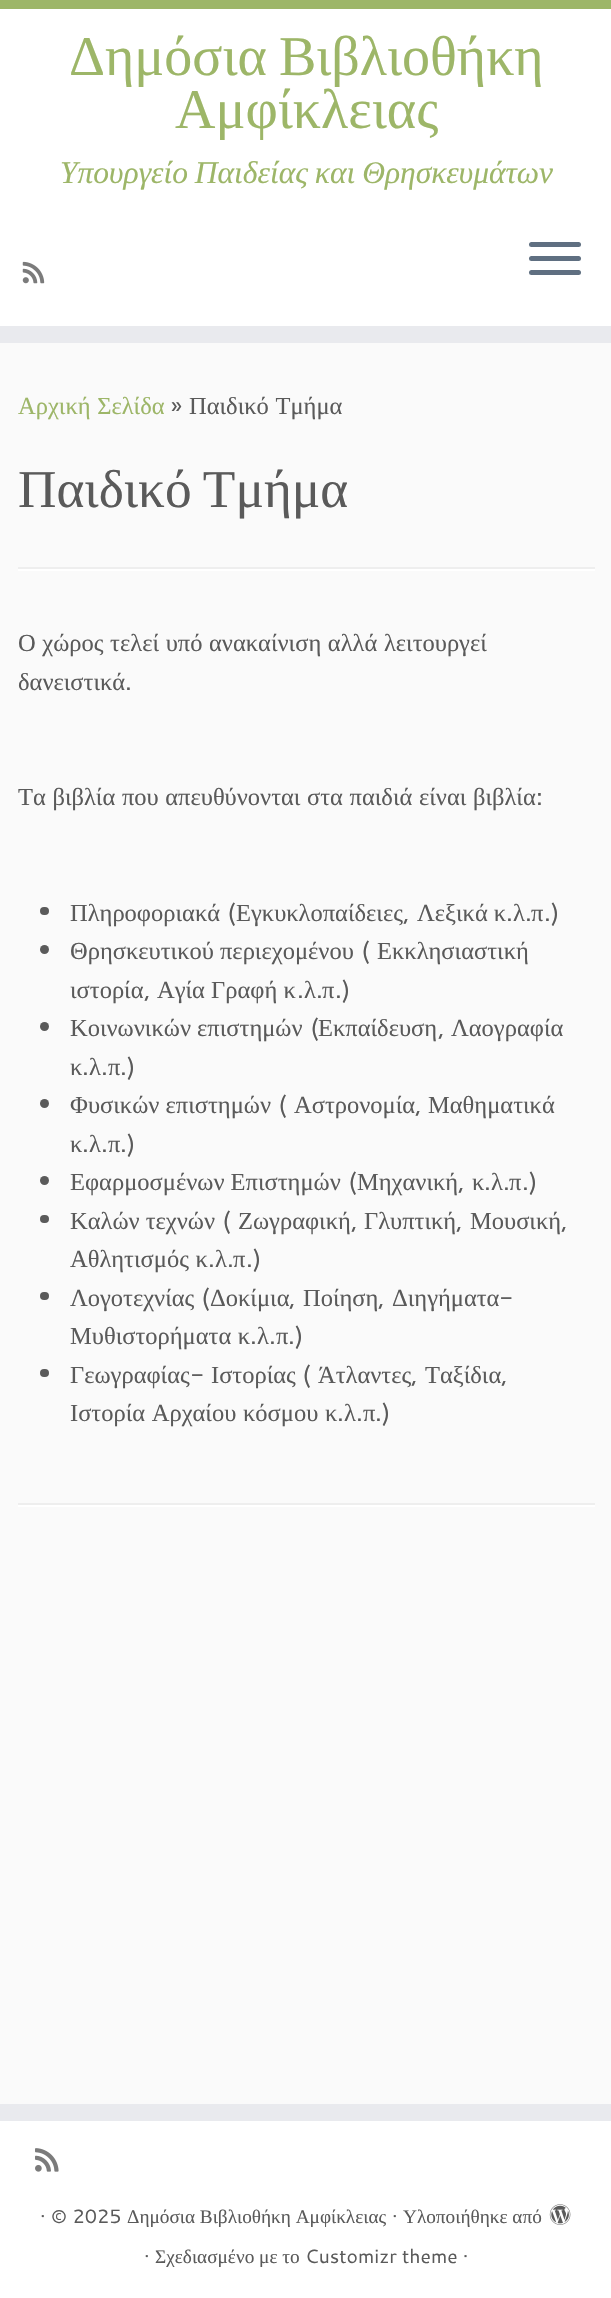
#include "include/core/SkBlurTypes.h"
#include "include/core/SkCanvas.h"
#include "include/core/SkData.h"
#include "include/core/SkFont.h"
#include "include/core/SkFontMgr.h"
#include "include/core/SkImage.h"
#include "include/core/SkMaskFilter.h"
#include "include/core/SkPaint.h"
#include "include/core/SkPathBuilder.h"
#include "include/core/SkTextBlob.h"
#include "include/effects/SkDashPathEffect.h"
#include "include/effects/SkGradientShader.h"
#include "include/utils/SkParsePath.h"

extern sk_sp<SkFontMgr> fontMgr;

void draw(SkCanvas* canvas) {
    SkPaint p;
    p.setAntiAlias(true);
    auto font = [&](const char* family, int weight, float size, bool italic = false) {
        SkFontStyle style(weight, SkFontStyle::kNormal_Width,
            italic ? SkFontStyle::kItalic_Slant : SkFontStyle::kUpright_Slant);
        SkFont result(fontMgr->matchFamilyStyle(family, style), size);
        result.setSubpixel(true);
        return result;
    };
    auto drawTracked = [&](const char* s, float x, float y, const SkFont& font, const SkPaint& ink, float letter, float word) {
        std::vector<SkGlyphID> glyphs(font.countText(s, strlen(s), SkTextEncoding::kUTF8));
        std::vector<float> xs(glyphs.size());
        font.textToGlyphs(s, strlen(s), SkTextEncoding::kUTF8, glyphs);
        font.getXPos(glyphs, xs, x);
        float extra = 0;
        for (size_t i = 0; i < glyphs.size(); i++) {
            xs[i] += extra;
            extra += letter + word * (glyphs[i] == font.unicharToGlyph(' '));
        }
        canvas->drawTextBlob(SkTextBlob::MakeFromPosHGlyphs(glyphs, xs, y, font), 0, 0, ink);
    };
    auto drawPhoto = [&](const char* path, float l, float t, float r, float b) {
        auto image = SkImages::DeferredFromEncodedData(SkData::MakeFromFileName(path));
        canvas->drawImageRect(image, SkRect::MakeLTRB(l, t, r, b), SkSamplingOptions());
    };
    canvas->clear(0xFFFAFAFA);
    {
        const struct { float l, t, r, b; SkColor color; } items[] = {
            {0, 9, 611, 326, 0xFFFFFFFF},
            {0, 0, 611, 9, 0xFF9DB668},
            {0, 326, 611, 343, 0xFFE9EAEE},
        };
        for (auto [l, t, r, b, color] : items) {
            p.setColor(color);
            canvas->drawRect(SkRect::MakeLTRB(l, t, r, b), p);
        }
    }
    auto font1 = font("Liberation Serif", 400, 56);
    p.setColor(0xFF9DB668);
    drawTracked("Δημόσια Βιβλιοθήκη", 69, 75, font1, p, 0, -2);
    canvas->drawString("Αμφίκλειας", 175, 128, font1, p);
    auto font2 = font("Liberation Serif", 400, 31.5f, true);
    drawTracked("Υπουργείο Παιδείας και Θρησκευμάτων", 60, 183, font2, p, 0, -1);
    drawPhoto("media/1.png", 22, 261, 45, 284);
    p.setColor(0xFF5F6F81);
    canvas->drawRoundRect(SkRect::MakeLTRB(529, 242, 581, 247), 2.5f, 2.5f, p);
    canvas->drawRoundRect(SkRect::MakeLTRB(529, 256, 581, 261), 2.5f, 2.5f, p);
    canvas->drawRoundRect(SkRect::MakeLTRB(529, 270, 581, 275), 2.5f, 2.5f, p);
    auto font3 = font("Liberation Serif", 400, 24.5f);
    p.setColor(0xFF9DB668);
    drawTracked("Αρχική Σελίδα", 18, 414, font3, p, 0, 0.5f);
    auto font4 = font("Cantarell", 400, 24.5f);
    p.setColor(0xFF5A5A5A);
    canvas->drawString("»", 171, 414, font4, p);
    drawTracked("Παιδικό Τμήμα", 189, 414, font3, p, 0, 0.5f);
    auto font5 = font("Liberation Serif", 400, 53.25f);
    drawTracked("Παιδικό Τμήμα", 18, 507, font5, p, 0, -2);
    p.setColor(0xFFEEEEEE);
    canvas->drawRect(SkRect::MakeLTRB(18, 567, 595, 569), p);
    p.setColor(0xFFFFFFFF);
    canvas->drawRect(SkRect::MakeLTRB(18, 569, 595, 571), p);
    p.setColor(0xFF5A5A5A);
    drawTracked("Ο χώρος τελεί υπό ανακαίνιση αλλά λειτουργεί", 18, 651, font3, p, 0, 0.5f);
    canvas->drawString("δανειστικά", 18, 690, font3, p);
    canvas->drawString(".", 125, 690, font4, p);
    drawTracked("Τα βιβλία που απευθύνονται στα παιδιά είναι βιβλία", 18, 805, font3, p, 0, 0.5f);
    canvas->drawString(":", 536, 805, font4, p);
    canvas->drawRoundRect(SkRect::MakeLTRB(40, 907, 49, 915), 4, 4, p);
    canvas->drawString("Πληροφοριακά", 70, 921, font3, p);
    canvas->drawString("(", 227, 921, font4, p);
    canvas->drawString("Εγκυκλοπαίδειες", 236, 921, font3, p);
    canvas->drawString(",", 403, 921, font4, p);
    canvas->drawString("Λεξικά κ", 417, 921, font3, p);
    canvas->drawString(".", 506, 921, font4, p);
    canvas->drawString("λ", 513, 921, font3, p);
    canvas->drawString(".", 525, 921, font4, p);
    canvas->drawString("π", 531, 921, font3, p);
    canvas->drawString(".)", 544, 921, font4, p);
    canvas->drawCircle(44.5f, 949.5f, 4.5f, p);
    canvas->drawString("Θρησκευτικού περιεχομένου", 70, 959, font3, p);
    canvas->drawString("(", 361, 959, font4, p);
    canvas->drawString("Εκκλησιαστική", 377, 959, font3, p);
    canvas->drawString("ιστορία", 70, 998, font3, p);
    canvas->drawString(",", 144, 998, font4, p);
    canvas->drawString("Αγία Γραφή κ", 157, 998, font3, p);
    canvas->drawString(".", 297, 998, font4, p);
    canvas->drawString("λ", 304, 998, font3, p);
    canvas->drawString(".", 316, 998, font4, p);
    canvas->drawString("π", 322, 998, font3, p);
    canvas->drawString(".)", 335, 998, font4, p);
    canvas->drawCircle(44.5f, 1026.5f, 4.5f, p);
    canvas->drawString("Κοινωνικών επιστημών", 70, 1036, font3, p);
    canvas->drawString("(", 310, 1036, font4, p);
    canvas->drawString("Εκπαίδευση", 318, 1036, font3, p);
    canvas->drawString("Λαογραφία", 451, 1036, font3, p);
    canvas->drawString(",", 438, 1036, font4, p);
    canvas->drawString("κ", 70, 1075, font3, p);
    canvas->drawString(".", 82, 1075, font4, p);
    canvas->drawString("λ", 89, 1075, font3, p);
    canvas->drawString(".", 101, 1075, font4, p);
    canvas->drawString("π", 108, 1075, font3, p);
    canvas->drawString(".)", 120, 1075, font4, p);
    canvas->drawCircle(44.5f, 1103.5f, 4.5f, p);
    canvas->drawString("Φυσικών επιστημών", 70, 1113, font3, p);
    canvas->drawString("(", 278, 1113, font4, p);
    canvas->drawString("Αστρονομία", 294, 1113, font3, p);
    canvas->drawString("Μαθηματικά", 428, 1113, font3, p);
    canvas->drawString(",", 415, 1113, font4, p);
    canvas->drawString("κ", 70, 1152, font3, p);
    canvas->drawString(".", 82, 1152, font4, p);
    canvas->drawString("λ", 89, 1152, font3, p);
    canvas->drawString(".", 101, 1152, font4, p);
    canvas->drawString("π", 108, 1152, font3, p);
    canvas->drawString(".)", 120, 1152, font4, p);
    canvas->drawCircle(44.5f, 1180.5f, 4.5f, p);
    canvas->drawString("Εφαρμοσμένων Επιστημών", 70, 1190, font3, p);
    canvas->drawString("(", 348, 1190, font4, p);
    canvas->drawString("Μηχανική", 357, 1190, font3, p);
    canvas->drawString(",", 458, 1190, font4, p);
    canvas->drawString("κ", 472, 1190, font3, p);
    canvas->drawString(".", 484, 1190, font4, p);
    canvas->drawString("λ", 491, 1190, font3, p);
    canvas->drawString(".", 503, 1190, font4, p);
    canvas->drawString("π", 509, 1190, font3, p);
    canvas->drawString(".)", 522, 1190, font4, p);
    canvas->drawRoundRect(SkRect::MakeLTRB(40, 1215, 49, 1223), 4, 4, p);
    canvas->drawString("Καλών τεχνών", 70, 1229, font3, p);
    canvas->drawString("(", 222, 1229, font4, p);
    {
        const struct { const char* s; float x, y; } items[] = {
            {"Ζωγραφική", 238, 1229},
            {"Γλυπτική", 364, 1229},
            {"Μουσική", 470, 1229},
        };
        for (auto [s, x, y] : items) {
            canvas->drawString(s, x, y, font3, p);
        }
    }
    {
        const struct { const char* s; float x, y; } items[] = {
            {",", 351, 1229},
            {",", 456, 1229},
            {",", 561, 1229},
        };
        for (auto [s, x, y] : items) {
            canvas->drawString(s, x, y, font4, p);
        }
    }
    drawTracked("Αθλητισμός κ", 70, 1267, font3, p, 0, 0.5f);
    canvas->drawString(".", 208, 1267, font4, p);
    canvas->drawString("λ", 215, 1267, font3, p);
    canvas->drawString(".", 227, 1267, font4, p);
    canvas->drawString("π", 233, 1267, font3, p);
    canvas->drawString(".)", 246, 1267, font4, p);
    canvas->drawRoundRect(SkRect::MakeLTRB(40, 1292, 49, 1300), 4, 4, p);
    canvas->drawString("Λογοτεχνίας", 70, 1306, font3, p);
    canvas->drawString("(", 201, 1306, font4, p);
    {
        const struct { const char* s; float x, y; } items[] = {
            {"Δοκίμια", 210, 1306},
            {"Ποίηση", 303, 1306},
            {"Διηγήματα", 392, 1306},
        };
        for (auto [s, x, y] : items) {
            canvas->drawString(s, x, y, font3, p);
        }
    }
    {
        const struct { const char* s; float x, y; } items[] = {
            {"-", 499, 1306},
            {",", 289, 1306},
            {",", 378, 1306},
        };
        for (auto [s, x, y] : items) {
            canvas->drawString(s, x, y, font4, p);
        }
    }
    drawTracked("Μυθιστορήματα κ", 70, 1344, font3, p, 0, 0.5f);
    canvas->drawString(".", 250, 1344, font4, p);
    canvas->drawString("λ", 257, 1344, font3, p);
    canvas->drawString(".", 269, 1344, font4, p);
    canvas->drawString("π", 276, 1344, font3, p);
    canvas->drawString(".)", 288, 1344, font4, p);
    canvas->drawRoundRect(SkRect::MakeLTRB(40, 1369, 49, 1377), 4, 4, p);
    canvas->drawString("Γεωγραφίας", 70, 1383, font3, p);
    canvas->drawString("-", 190, 1383, font4, p);
    canvas->drawString("Ιστορίας", 211, 1383, font3, p);
    canvas->drawString("(", 302, 1383, font4, p);
    canvas->drawString("Άτλαντες", 318, 1383, font3, p);
    canvas->drawString("Ταξίδια", 425, 1383, font3, p);
    canvas->drawString(",", 411, 1383, font4, p);
    canvas->drawString(",", 501, 1383, font4, p);
    drawTracked("Ιστορία Αρχαίου κόσμου κ", 70, 1421, font3, p, 0, 0.5f);
    canvas->drawString(".", 337, 1421, font4, p);
    canvas->drawString("λ", 344, 1421, font3, p);
    canvas->drawString(".", 356, 1421, font4, p);
    canvas->drawString("π", 363, 1421, font3, p);
    canvas->drawString(".)", 375, 1421, font4, p);
    {
        const struct { float l, t, r, b; SkColor color; } items[] = {
            {18, 1503, 595, 1505, 0xFFEEEEEE},
            {18, 1505, 595, 1507, 0xFFFFFFFF},
            {0, 2104, 611, 2121, 0xFFE9EAEE},
            {0, 2121, 611, 2298, 0xFFFFFFFF},
        };
        for (auto [l, t, r, b, color] : items) {
            p.setColor(color);
            canvas->drawRect(SkRect::MakeLTRB(l, t, r, b), p);
        }
    }
    drawPhoto("media/2.png", 35, 2148, 59, 2172);
    auto font6 = font("Cantarell", 400, 19.25f);
    p.setColor(0xFF5A5A5A);
    canvas->drawString("· © 2025", 40, 2223, font6, p);
    auto font7 = font("Liberation Serif", 400, 19.25f);
    canvas->drawString("Δημόσια Βιβλιοθήκη Αμφίκλειας", 127, 2223, font7, p);
    canvas->drawString("·", 392, 2223, font6, p);
    canvas->drawString("Υλοποιήθηκε από", 403, 2223, font7, p);
    drawPhoto("media/3.png", 549, 2204, 571, 2225);
    canvas->drawString("·", 144, 2263, font6, p);
    canvas->drawString("Σχεδιασμένο με το", 155, 2263, font7, p);
    canvas->drawString("Customizr theme ·", 305, 2263, font6, p);
}
